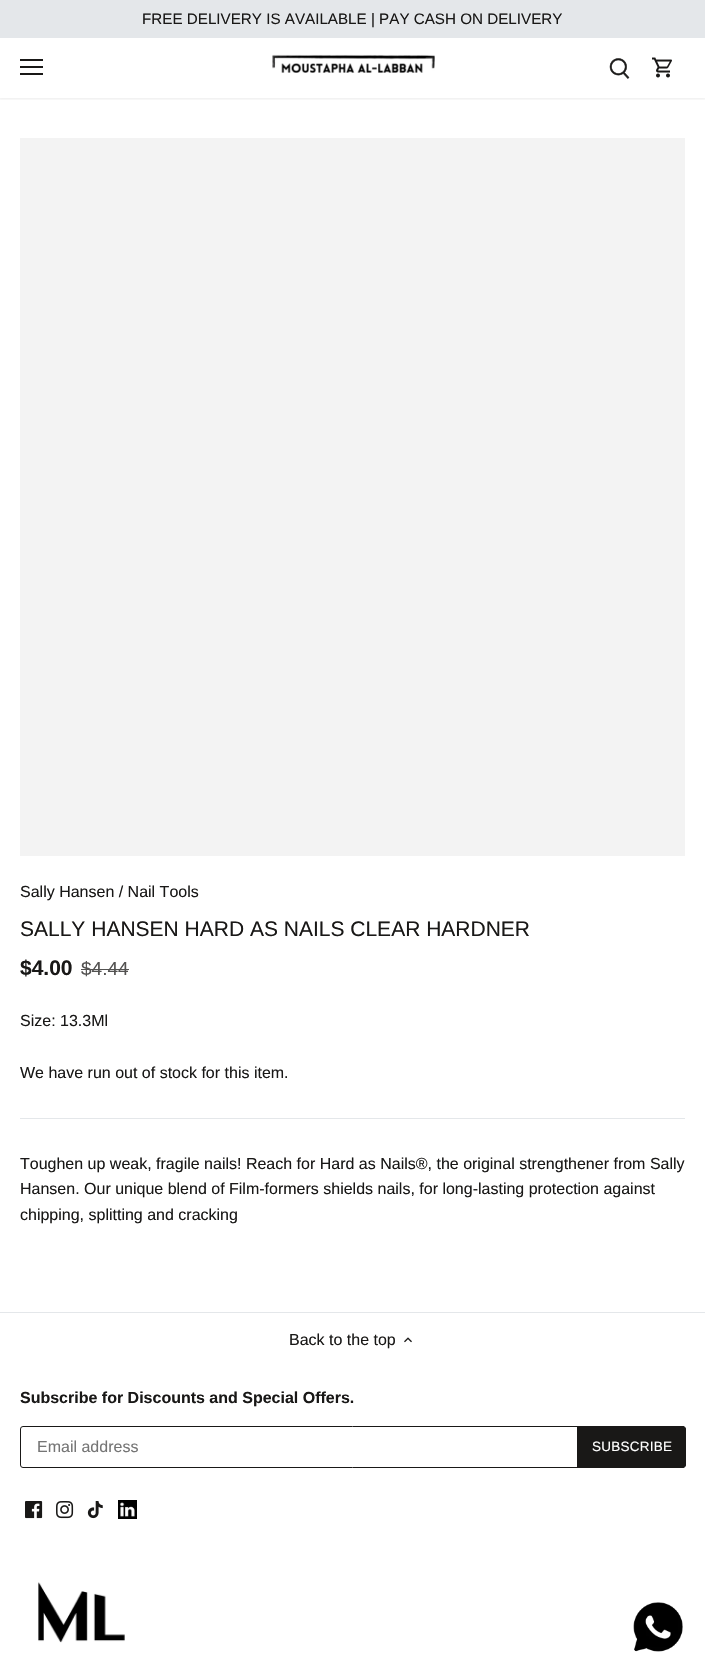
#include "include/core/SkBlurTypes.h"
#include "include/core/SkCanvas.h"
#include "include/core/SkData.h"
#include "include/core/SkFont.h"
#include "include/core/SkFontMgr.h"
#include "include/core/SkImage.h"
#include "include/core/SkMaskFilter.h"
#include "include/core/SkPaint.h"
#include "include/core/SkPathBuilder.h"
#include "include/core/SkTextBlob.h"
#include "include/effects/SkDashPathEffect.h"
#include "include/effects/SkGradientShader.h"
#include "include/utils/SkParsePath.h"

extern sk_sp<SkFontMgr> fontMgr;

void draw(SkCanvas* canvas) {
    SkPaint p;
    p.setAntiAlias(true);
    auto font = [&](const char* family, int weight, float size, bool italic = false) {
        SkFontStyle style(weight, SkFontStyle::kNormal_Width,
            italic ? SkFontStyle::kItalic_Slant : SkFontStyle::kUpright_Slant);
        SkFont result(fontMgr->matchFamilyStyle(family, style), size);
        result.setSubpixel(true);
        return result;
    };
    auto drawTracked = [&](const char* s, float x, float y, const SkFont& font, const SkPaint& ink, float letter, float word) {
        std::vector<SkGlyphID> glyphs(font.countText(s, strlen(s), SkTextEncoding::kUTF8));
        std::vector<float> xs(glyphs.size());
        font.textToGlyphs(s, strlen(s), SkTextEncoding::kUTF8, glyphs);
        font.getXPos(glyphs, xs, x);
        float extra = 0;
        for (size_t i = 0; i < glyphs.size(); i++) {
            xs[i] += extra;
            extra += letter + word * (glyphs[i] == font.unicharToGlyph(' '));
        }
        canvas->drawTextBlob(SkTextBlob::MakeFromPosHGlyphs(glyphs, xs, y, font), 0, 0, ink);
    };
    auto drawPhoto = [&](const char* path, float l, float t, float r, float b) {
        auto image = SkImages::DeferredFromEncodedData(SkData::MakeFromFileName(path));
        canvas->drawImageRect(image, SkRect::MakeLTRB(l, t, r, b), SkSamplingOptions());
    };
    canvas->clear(0xFFFFFFFF);
    canvas->save();
    canvas->clipRect(SkRect::MakeLTRB(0, 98, 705, 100));
    p.setColor(0x14000000);
    p.setMaskFilter(SkMaskFilter::MakeBlur(kNormal_SkBlurStyle, 1.5f));
    canvas->drawRect(SkRect::MakeLTRB(-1, 37, 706, 99), p);
    p.setMaskFilter(nullptr);
    canvas->restore();
    p.setColor(0xFFE4E7EA);
    canvas->drawRect(SkRect::MakeLTRB(0, 0, 705, 38), p);
    auto font1 = font("Liberation Sans", 400, 15.2f);
    p.setColor(0xFF191817);
    canvas->drawString("FREE DELIVERY IS AVAILABLE | PAY CASH ON DELIVERY", 142, 24, font1, p);
    {
        const struct { float l, t, r, b; SkColor color; } items[] = {
            {20, 59, 43, 61, 0xFF191817},
            {20, 66, 43, 68, 0xFF191817},
            {20, 73, 43, 75, 0xFF191817},
        };
        for (auto [l, t, r, b, color] : items) {
            p.setColor(color);
            canvas->drawRect(SkRect::MakeLTRB(l, t, r, b), p);
        }
    }
    drawPhoto("media/1.png", 272, 54, 435, 73);
    drawPhoto("media/2.png", 609, 58, 630, 79);
    drawPhoto("media/3.png", 652, 57, 672, 78);
    p.setColor(0xFFF3F3F3);
    canvas->drawRect(SkRect::MakeLTRB(20, 138, 685, 856), p);
    auto font2 = font("Liberation Sans", 400, 16);
    p.setColor(0xFF191817);
    canvas->drawString("Sally Hansen / Nail Tools", 20, 897, font2, p);
    auto font3 = font("Liberation Sans", 400, 21);
    canvas->drawString("SALLY HANSEN HARD AS NAILS CLEAR HARDNER", 20, 936, font3, p);
    auto font4 = font("Liberation Sans", 700, 21);
    canvas->drawString("$4.00", 20, 975, font4, p);
    auto font5 = font("Liberation Sans", 400, 19);
    p.setColor(0xFF535251);
    canvas->drawString("$4.44", 81, 975, font5, p);
    canvas->drawRect(SkRect::MakeLTRB(81, 969, 129, 970), p);
    p.setColor(0xFF191817);
    canvas->drawString("Size: 13.3Ml", 20, 1026, font2, p);
    canvas->drawString("We have run out of stock for this item.", 20, 1078, font2, p);
    p.setColor(0xFFE4E7EA);
    canvas->drawRect(SkRect::MakeLTRB(20, 1118, 685, 1119), p);
    p.setColor(0xFF191817);
    {
        const struct { const char* s; float x, y; } items[] = {
            {"Toughen up weak, fragile nails! Reach for Hard as Nails®, the original strengthener from Sally", 20, 1169},
            {"Hansen. Our unique blend of Film-formers shields nails, for long-lasting protection against", 20, 1194},
            {"chipping, splitting and cracking", 20, 1220},
        };
        for (auto [s, x, y] : items) {
            canvas->drawString(s, x, y, font2, p);
        }
    }
    p.setColor(0xFFE4E7EA);
    canvas->drawRect(SkRect::MakeLTRB(0, 1312, 705, 1313), p);
    p.setColor(0xFF191817);
    canvas->drawString("Back to the top", 289, 1345, font2, p);
    drawPhoto("media/4.png", 404, 1337, 412, 1343);
    auto font6 = font("Liberation Sans", 700, 16);
    canvas->drawString("Subscribe for Discounts and Special Offers.", 20, 1403, font6, p);
    p.setStyle(SkPaint::kStroke_Style);
    p.setStrokeWidth(1);
    canvas->drawRoundRect(SkRect::MakeLTRB(20.5f, 1426.5f, 684.5f, 1467.5f), 2.5f, 2.5f, p);
    p.setStyle(SkPaint::kFill_Style);
    p.setColor(0xFF757575);
    canvas->drawString("Email address", 37, 1452, font2, p);
    p.setColor(0xFF191817);
    canvas->drawPath(SkPathBuilder().moveTo(577.5f, 1426.5f).lineTo(683, 1426.5f).cubicTo(684.5f, 1426.5f, 685.5f, 1427.5f, 685.5f, 1429).lineTo(685.5f, 1465).cubicTo(685.5f, 1466.5f, 684.5f, 1467.5f, 683, 1467.5f).lineTo(577.5f, 1467.5f).close().detach(), p);
    p.setStyle(SkPaint::kStroke_Style);
    canvas->drawPath(SkPathBuilder().moveTo(577.5f, 1426.5f).lineTo(683, 1426.5f).cubicTo(684.5f, 1426.5f, 685.5f, 1427.5f, 685.5f, 1429).lineTo(685.5f, 1465).cubicTo(685.5f, 1466.5f, 684.5f, 1467.5f, 683, 1467.5f).lineTo(577.5f, 1467.5f).close().detach(), p);
    auto font7 = font("Liberation Sans", 400, 13.5f);
    p.setStyle(SkPaint::kFill_Style);
    p.setColor(0xFFFFFFFF);
    drawTracked("SUBSCRIBE", 592, 1451, font7, p, 0.25f, 0);
    drawPhoto("media/5.png", 25, 1501, 43, 1519);
    drawPhoto("media/6.png", 56, 1501, 74, 1519);
    drawPhoto("media/7.png", 87, 1501, 103, 1519);
    drawPhoto("media/8.png", 118, 1500, 137, 1519);
    drawPhoto("media/9.png", 38, 1582, 125, 1643);
    drawPhoto("media/10.png", 633, 1602, 683, 1652);
}
